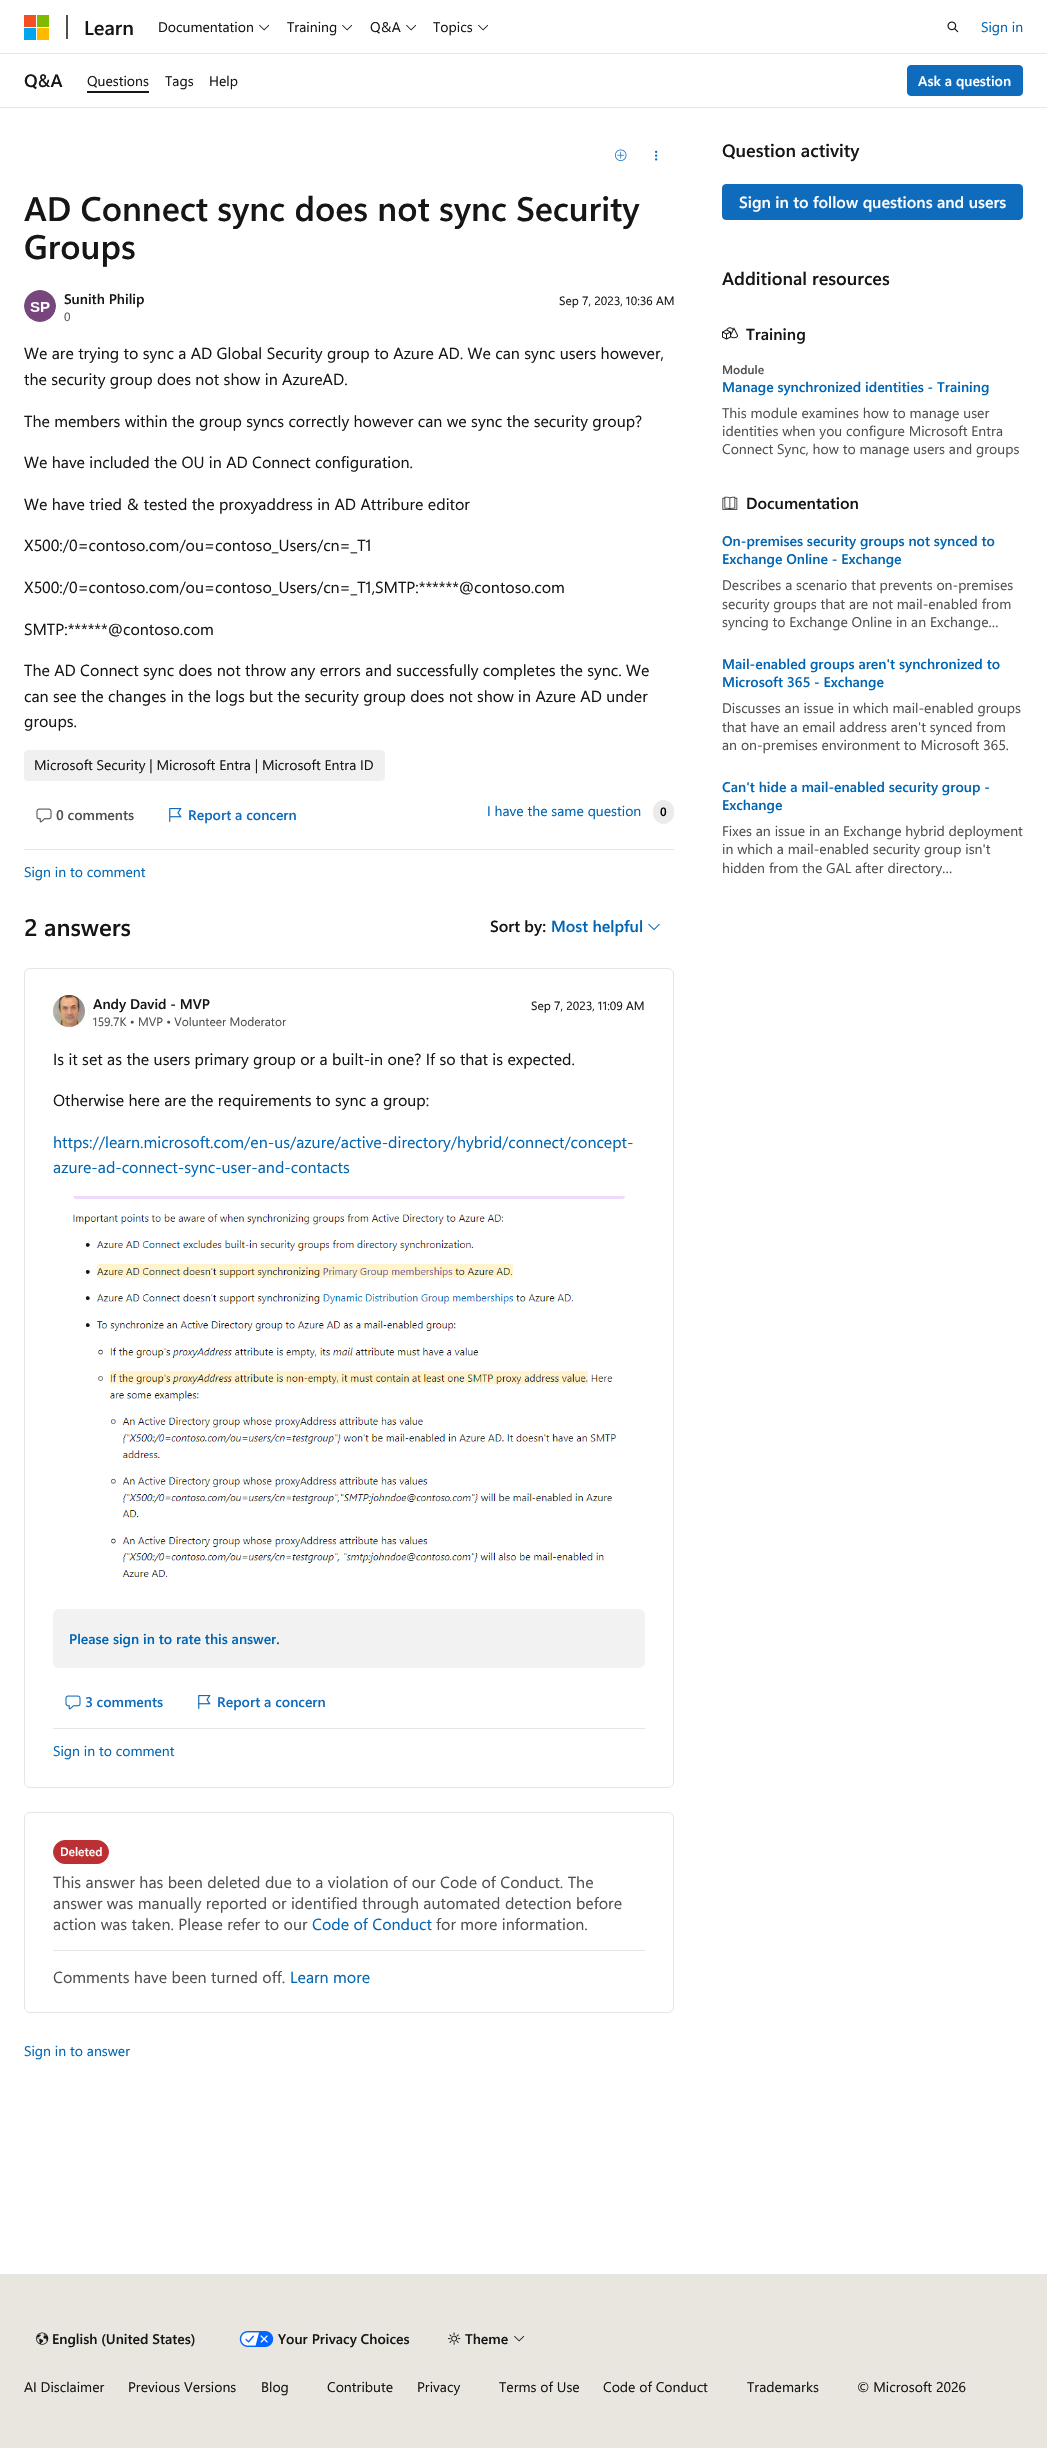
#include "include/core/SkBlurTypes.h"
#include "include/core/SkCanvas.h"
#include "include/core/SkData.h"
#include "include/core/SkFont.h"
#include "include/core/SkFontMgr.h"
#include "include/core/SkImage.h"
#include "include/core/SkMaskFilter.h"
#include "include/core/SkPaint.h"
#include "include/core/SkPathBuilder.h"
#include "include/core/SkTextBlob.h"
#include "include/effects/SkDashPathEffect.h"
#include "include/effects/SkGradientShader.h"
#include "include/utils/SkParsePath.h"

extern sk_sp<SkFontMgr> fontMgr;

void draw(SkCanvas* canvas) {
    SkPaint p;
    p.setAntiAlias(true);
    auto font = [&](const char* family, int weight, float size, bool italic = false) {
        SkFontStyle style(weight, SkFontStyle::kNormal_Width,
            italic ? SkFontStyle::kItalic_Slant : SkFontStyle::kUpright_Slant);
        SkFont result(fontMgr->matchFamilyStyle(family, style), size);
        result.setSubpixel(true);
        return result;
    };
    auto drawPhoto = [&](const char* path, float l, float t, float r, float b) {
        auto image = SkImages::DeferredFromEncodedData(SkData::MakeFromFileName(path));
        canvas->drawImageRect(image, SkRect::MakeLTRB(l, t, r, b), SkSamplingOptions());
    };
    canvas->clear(0xFFFFFFFF);
    {
        const struct { float l, t, r, b; SkColor color; } items[] = {
            {0, 53, 1047, 54, 0xFFE6E6E6},
            {24, 15, 36, 27, 0xFFF25022},
            {37, 15, 49, 27, 0xFF7FBA00},
            {24, 28, 36, 40, 0xFF00A4EF},
            {37, 28, 49, 40, 0xFFFFB900},
            {66, 15, 68, 39, 0xFF505050},
        };
        for (auto [l, t, r, b, color] : items) {
            p.setColor(color);
            canvas->drawRect(SkRect::MakeLTRB(l, t, r, b), p);
        }
    }
    auto font1 = font("Segoe UI", 600, 20);
    p.setColor(0xFF161616);
    canvas->drawString("Learn", 84, 35, font1, p);
    auto font2 = font("Segoe UI", 400, 14);
    canvas->drawString("Documentation", 158, 32, font2, p);
    drawPhoto("media/1.png", 259, 24, 270, 31);
    canvas->drawString("Training", 287, 32, font2, p);
    drawPhoto("media/1.png", 342, 24, 353, 31);
    canvas->drawString("Q&A", 370, 32, font2, p);
    drawPhoto("media/1.png", 406, 24, 417, 31);
    canvas->drawString("Topics", 433, 32, font2, p);
    drawPhoto("media/1.png", 478, 24, 489, 31);
    drawPhoto("media/2.png", 947, 21, 959, 33);
    p.setColor(0xFF0065B3);
    canvas->drawString("Sign in", 981, 32, font2, p);
    p.setColor(0xFFE6E6E6);
    canvas->drawRect(SkRect::MakeLTRB(0, 107, 1047, 108), p);
    auto font3 = font("Segoe UI", 600, 18);
    p.setColor(0xFF161616);
    canvas->drawString("Q&A", 24, 87, font3, p);
    canvas->drawString("Questions", 87, 86, font2, p);
    canvas->drawRect(SkRect::MakeLTRB(87, 91, 149, 93), p);
    canvas->drawString("Tags", 165, 86, font2, p);
    canvas->drawString("Help", 209, 86, font2, p);
    p.setColor(0xFF0F6CBD);
    canvas->drawRoundRect(SkRect::MakeLTRB(907.5f, 65.5f, 1022.5f, 95.5f), 3.5f, 3.5f, p);
    p.setStyle(SkPaint::kStroke_Style);
    p.setStrokeWidth(1);
    canvas->drawRoundRect(SkRect::MakeLTRB(907.5f, 65.5f, 1022.5f, 95.5f), 3.5f, 3.5f, p);
    auto font4 = font("Segoe UI", 600, 14);
    p.setStyle(SkPaint::kFill_Style);
    p.setColor(0xFFFFFFFF);
    canvas->drawString("Ask a question", 918, 86, font4, p);
    drawPhoto("media/3.png", 615, 149, 627, 161);
    drawPhoto("media/4.png", 655, 150, 658, 161);
    auto font5 = font("Segoe UI", 600, 34);
    p.setColor(0xFF161616);
    canvas->drawString("AD Connect sync does not sync Security", 24, 221, font5, p);
    canvas->drawString("Groups", 24, 259, font5, p);
    p.setColor(0xFFF2F2F2);
    canvas->drawCircle(40, 306, 16, p);
    drawPhoto("media/5.png", 24, 290, 56, 322);
    p.setColor(0xFF161616);
    canvas->drawString("Sunith Philip", 64, 304, font4, p);
    auto font6 = font("Segoe UI", 400, 12);
    p.setColor(0xFF505050);
    canvas->drawString("0", 64, 321, font6, p);
    p.setColor(0xFF161616);
    canvas->drawString("Sep 7, 2023, 10:36 AM", 559, 305, font6, p);
    auto font7 = font("Segoe UI", 400, 16);
    {
        const struct { const char* s; float x, y; } items[] = {
            {"We are trying to sync a AD Global Security group to Azure AD. We can sync users however,", 24, 359},
            {"the security group does not show in AzureAD.", 24, 385},
            {"The members within the group syncs correctly however can we sync the security group?", 24, 427},
            {"We have included the OU in AD Connect configuration.", 24, 468},
            {"We have tried & tested the proxyaddress in AD Attribure editor", 24, 510},
            {"X500:/0=contoso.com/ou=contoso_Users/cn=_T1", 24, 551},
            {"X500:/0=contoso.com/ou=contoso_Users/cn=_T1,SMTP:******@contoso.com", 24, 593},
            {"SMTP:******@contoso.com", 24, 635},
            {"The AD Connect sync does not throw any errors and successfully completes the sync. We", 24, 676},
            {"can see the changes in the logs but the security group does not show in Azure AD under", 24, 702},
            {"groups.", 24, 727},
        };
        for (auto [s, x, y] : items) {
            canvas->drawString(s, x, y, font7, p);
        }
    }
    p.setColor(0xFFF0F0F0);
    canvas->drawRoundRect(SkRect::MakeLTRB(24.5f, 750.5f, 384.5f, 780.5f), 3.5f, 3.5f, p);
    p.setStyle(SkPaint::kStroke_Style);
    canvas->drawRoundRect(SkRect::MakeLTRB(24.5f, 750.5f, 384.5f, 780.5f), 3.5f, 3.5f, p);
    p.setStyle(SkPaint::kFill_Style);
    p.setColor(0xFF161616);
    canvas->drawString("Microsoft Security | Microsoft Entra | Microsoft Entra ID", 34, 770, font2, p);
    drawPhoto("media/6.png", 36, 808, 52, 823);
    p.setColor(0xFF505050);
    canvas->drawString("0 comments", 56, 820, font4, p);
    drawPhoto("media/7.png", 169, 808, 182, 822);
    p.setColor(0xFF0F6CBD);
    canvas->drawString("Report a concern", 188, 820, font4, p);
    p.setColor(0xFF0065B3);
    canvas->drawString("I have the same question", 487, 816, font2, p);
    p.setColor(0xFFEBEBEB);
    canvas->drawRoundRect(SkRect::MakeLTRB(653.5f, 800.5f, 673.5f, 823.5f), 10, 10, p);
    p.setStyle(SkPaint::kStroke_Style);
    canvas->drawRoundRect(SkRect::MakeLTRB(653.5f, 800.5f, 673.5f, 823.5f), 10, 10, p);
    auto font8 = font("Segoe UI", 600, 12);
    p.setStyle(SkPaint::kFill_Style);
    p.setColor(0xFF000000);
    canvas->drawString("0", 660, 816, font8, p);
    p.setColor(0xFFE6E6E6);
    canvas->drawRect(SkRect::MakeLTRB(24, 849, 674, 850), p);
    p.setColor(0xFF0065B3);
    canvas->drawString("Sign in to comment", 24, 877, font2, p);
    auto font9 = font("Segoe UI", 600, 24);
    p.setColor(0xFF161616);
    canvas->drawString("2 answers", 24, 936, font9, p);
    auto font10 = font("Segoe UI", 600, 16);
    canvas->drawString("Sort by:", 490, 932, font10, p);
    p.setColor(0xFF0065B3);
    canvas->drawString("Most helpful", 551, 932, font10, p);
    drawPhoto("media/8.png", 648, 923, 660, 931);
    p.setStyle(SkPaint::kStroke_Style);
    p.setColor(0xFFE6E6E6);
    canvas->drawRoundRect(SkRect::MakeLTRB(24.5f, 968.5f, 673.5f, 1787.5f), 5.5f, 5.5f, p);
    p.setStyle(SkPaint::kFill_Style);
    p.setColor(0xFFF2F2F2);
    canvas->drawCircle(69, 1011, 16, p);
    drawPhoto("media/9.png", 53, 995, 85, 1027);
    p.setColor(0xFF161616);
    canvas->drawString("Andy David - MVP", 93, 1009, font4, p);
    p.setColor(0xFF505050);
    canvas->drawString("159.7K • MVP • Volunteer Moderator", 93, 1026, font6, p);
    p.setColor(0xFF161616);
    canvas->drawString("Sep 7, 2023, 11:09 AM", 531, 1010, font6, p);
    canvas->drawString("Is it set as the users primary group or a built-in one? If so that is expected.", 53, 1065, font7, p);
    canvas->drawString("Otherwise here are the requirements to sync a group:", 53, 1106, font7, p);
    p.setColor(0xFF0065B3);
    canvas->drawString("https://learn.microsoft.com/en-us/azure/active-directory/hybrid/connect/concept-", 53, 1148, font7, p);
    canvas->drawString("azure-ad-connect-sync-user-and-contacts", 53, 1173, font7, p);
    drawPhoto("media/10.png", 73, 1196, 625, 1577);
    p.setColor(0xFFF2F2F2);
    canvas->drawRoundRect(SkRect::MakeLTRB(53, 1609, 645, 1668), 6, 6, p);
    p.setColor(0xFF0065B3);
    canvas->drawString("Please sign in to rate this answer.", 69, 1644, font4, p);
    drawPhoto("media/11.png", 65, 1695, 81, 1710);
    p.setColor(0xFF0F6CBD);
    canvas->drawString("3 comments", 85, 1707, font4, p);
    drawPhoto("media/7.png", 198, 1695, 211, 1709);
    canvas->drawString("Report a concern", 217, 1707, font4, p);
    p.setColor(0xFFE6E6E6);
    canvas->drawRect(SkRect::MakeLTRB(53, 1728, 645, 1729), p);
    p.setColor(0xFF0065B3);
    canvas->drawString("Sign in to comment", 53, 1756, font2, p);
    p.setStyle(SkPaint::kStroke_Style);
    p.setColor(0xFFE6E6E6);
    canvas->drawRoundRect(SkRect::MakeLTRB(24.5f, 1812.5f, 673.5f, 2012.5f), 5.5f, 5.5f, p);
    p.setStyle(SkPaint::kFill_Style);
    p.setColor(0xFFBC2F32);
    canvas->drawRoundRect(SkRect::MakeLTRB(53.5f, 1840.5f, 108.5f, 1863.5f), 11.5f, 11.5f, p);
    p.setStyle(SkPaint::kStroke_Style);
    canvas->drawRoundRect(SkRect::MakeLTRB(53.5f, 1840.5f, 108.5f, 1863.5f), 11.5f, 11.5f, p);
    p.setStyle(SkPaint::kFill_Style);
    p.setColor(0xFFFFFFFF);
    canvas->drawString("Deleted", 60, 1856, font8, p);
    p.setColor(0xFF505050);
    {
        const struct { const char* s; float x, y; } items[] = {
            {"This answer has been deleted due to a violation of our Code of Conduct. The", 53, 1888},
            {"answer was manually reported or identified through automated detection before", 53, 1909},
            {"action was taken. Please refer to our", 53, 1930},
        };
        for (auto [s, x, y] : items) {
            canvas->drawString(s, x, y, font7, p);
        }
    }
    p.setColor(0xFF0065B3);
    canvas->drawString("Code of Conduct", 312, 1930, font7, p);
    p.setColor(0xFF505050);
    canvas->drawString("for more information.", 436, 1930, font7, p);
    p.setColor(0xFFE6E6E6);
    canvas->drawRect(SkRect::MakeLTRB(53, 1950, 645, 1951), p);
    p.setColor(0xFF505050);
    canvas->drawString("Comments have been turned off.", 53, 1983, font7, p);
    p.setColor(0xFF0065B3);
    canvas->drawString("Learn more", 290, 1983, font7, p);
    canvas->drawString("Sign in to answer", 24, 2056, font2, p);
    p.setColor(0xFF161616);
    canvas->drawString("Question activity", 722, 157, font3, p);
    p.setColor(0xFF0F6CBD);
    canvas->drawRoundRect(SkRect::MakeLTRB(722.5f, 184.5f, 1022.5f, 219.5f), 3.5f, 3.5f, p);
    p.setStyle(SkPaint::kStroke_Style);
    canvas->drawRoundRect(SkRect::MakeLTRB(722.5f, 184.5f, 1022.5f, 219.5f), 3.5f, 3.5f, p);
    p.setStyle(SkPaint::kFill_Style);
    p.setColor(0xFFFFFFFF);
    canvas->drawString("Sign in to follow questions and users", 739, 208, font10, p);
    p.setColor(0xFF161616);
    canvas->drawString("Additional resources", 722, 285, font3, p);
    drawPhoto("media/12.png", 722, 327, 738, 340);
    canvas->drawString("Training", 746, 340, font10, p);
    p.setColor(0xFF505050);
    canvas->drawString("Module", 722, 374, font8, p);
    p.setColor(0xFF0065B3);
    canvas->drawString("Manage synchronized identities - Training", 722, 392, font4, p);
    p.setColor(0xFF505050);
    {
        const struct { const char* s; float x, y; } items[] = {
            {"This module examines how to manage user", 722, 418},
            {"identities when you configure Microsoft Entra", 722, 436},
            {"Connect Sync, how to manage users and groups", 722, 454},
        };
        for (auto [s, x, y] : items) {
            canvas->drawString(s, x, y, font2, p);
        }
    }
    drawPhoto("media/13.png", 722, 496, 738, 510);
    p.setColor(0xFF161616);
    canvas->drawString("Documentation", 746, 509, font10, p);
    p.setColor(0xFF0065B3);
    canvas->drawString("On-premises security groups not synced to", 722, 546, font4, p);
    canvas->drawString("Exchange Online - Exchange", 722, 564, font4, p);
    p.setColor(0xFF505050);
    {
        const struct { const char* s; float x, y; } items[] = {
            {"Describes a scenario that prevents on-premises", 722, 590},
            {"security groups that are not mail-enabled from", 722, 609},
            {"syncing to Exchange Online in an Exchange…", 722, 627},
        };
        for (auto [s, x, y] : items) {
            canvas->drawString(s, x, y, font2, p);
        }
    }
    p.setColor(0xFF0065B3);
    canvas->drawString("Mail-enabled groups aren't synchronized to", 722, 669, font4, p);
    canvas->drawString("Microsoft 365 - Exchange", 722, 687, font4, p);
    p.setColor(0xFF505050);
    {
        const struct { const char* s; float x, y; } items[] = {
            {"Discusses an issue in which mail-enabled groups", 722, 713},
            {"that have an email address aren't synced from", 722, 732},
            {"an on-premises environment to Microsoft 365.", 722, 750},
        };
        for (auto [s, x, y] : items) {
            canvas->drawString(s, x, y, font2, p);
        }
    }
    p.setColor(0xFF0065B3);
    canvas->drawString("Can't hide a mail-enabled security group -", 722, 792, font4, p);
    canvas->drawString("Exchange", 722, 810, font4, p);
    p.setColor(0xFF505050);
    {
        const struct { const char* s; float x, y; } items[] = {
            {"Fixes an issue in an Exchange hybrid deployment", 722, 836},
            {"in which a mail-enabled security group isn't", 722, 854},
            {"hidden from the GAL after directory…", 722, 873},
        };
        for (auto [s, x, y] : items) {
            canvas->drawString(s, x, y, font2, p);
        }
    }
    p.setColor(0xFFE8E6DF);
    canvas->drawRect(SkRect::MakeLTRB(0, 2275, 1047, 2448), p);
    p.setColor(0xFFE6E6E6);
    canvas->drawRect(SkRect::MakeLTRB(0, 2274, 1047, 2275), p);
    drawPhoto("media/14.png", 36, 2332, 49, 2345);
    p.setColor(0xFF161616);
    canvas->drawString("English (United States)", 52, 2344, font4, p);
    drawPhoto("media/15.png", 239, 2331, 274, 2347);
    canvas->drawString("Your Privacy Choices", 278, 2344, font4, p);
    drawPhoto("media/16.png", 448, 2332, 461, 2345);
    canvas->drawString("Theme", 465, 2344, font4, p);
    drawPhoto("media/17.png", 514, 2335, 525, 2342);
    {
        const struct { const char* s; float x, y; } items[] = {
            {"AI Disclaimer", 24, 2392},
            {"Previous Versions", 128, 2392},
            {"Blog", 261, 2392},
            {"Contribute", 327, 2392},
            {"Privacy", 417, 2392},
            {"Terms of Use", 499, 2392},
            {"Code of Conduct", 603, 2392},
            {"Trademarks", 747, 2392},
            {"© Microsoft 2026", 857, 2392},
        };
        for (auto [s, x, y] : items) {
            canvas->drawString(s, x, y, font2, p);
        }
    }
}
